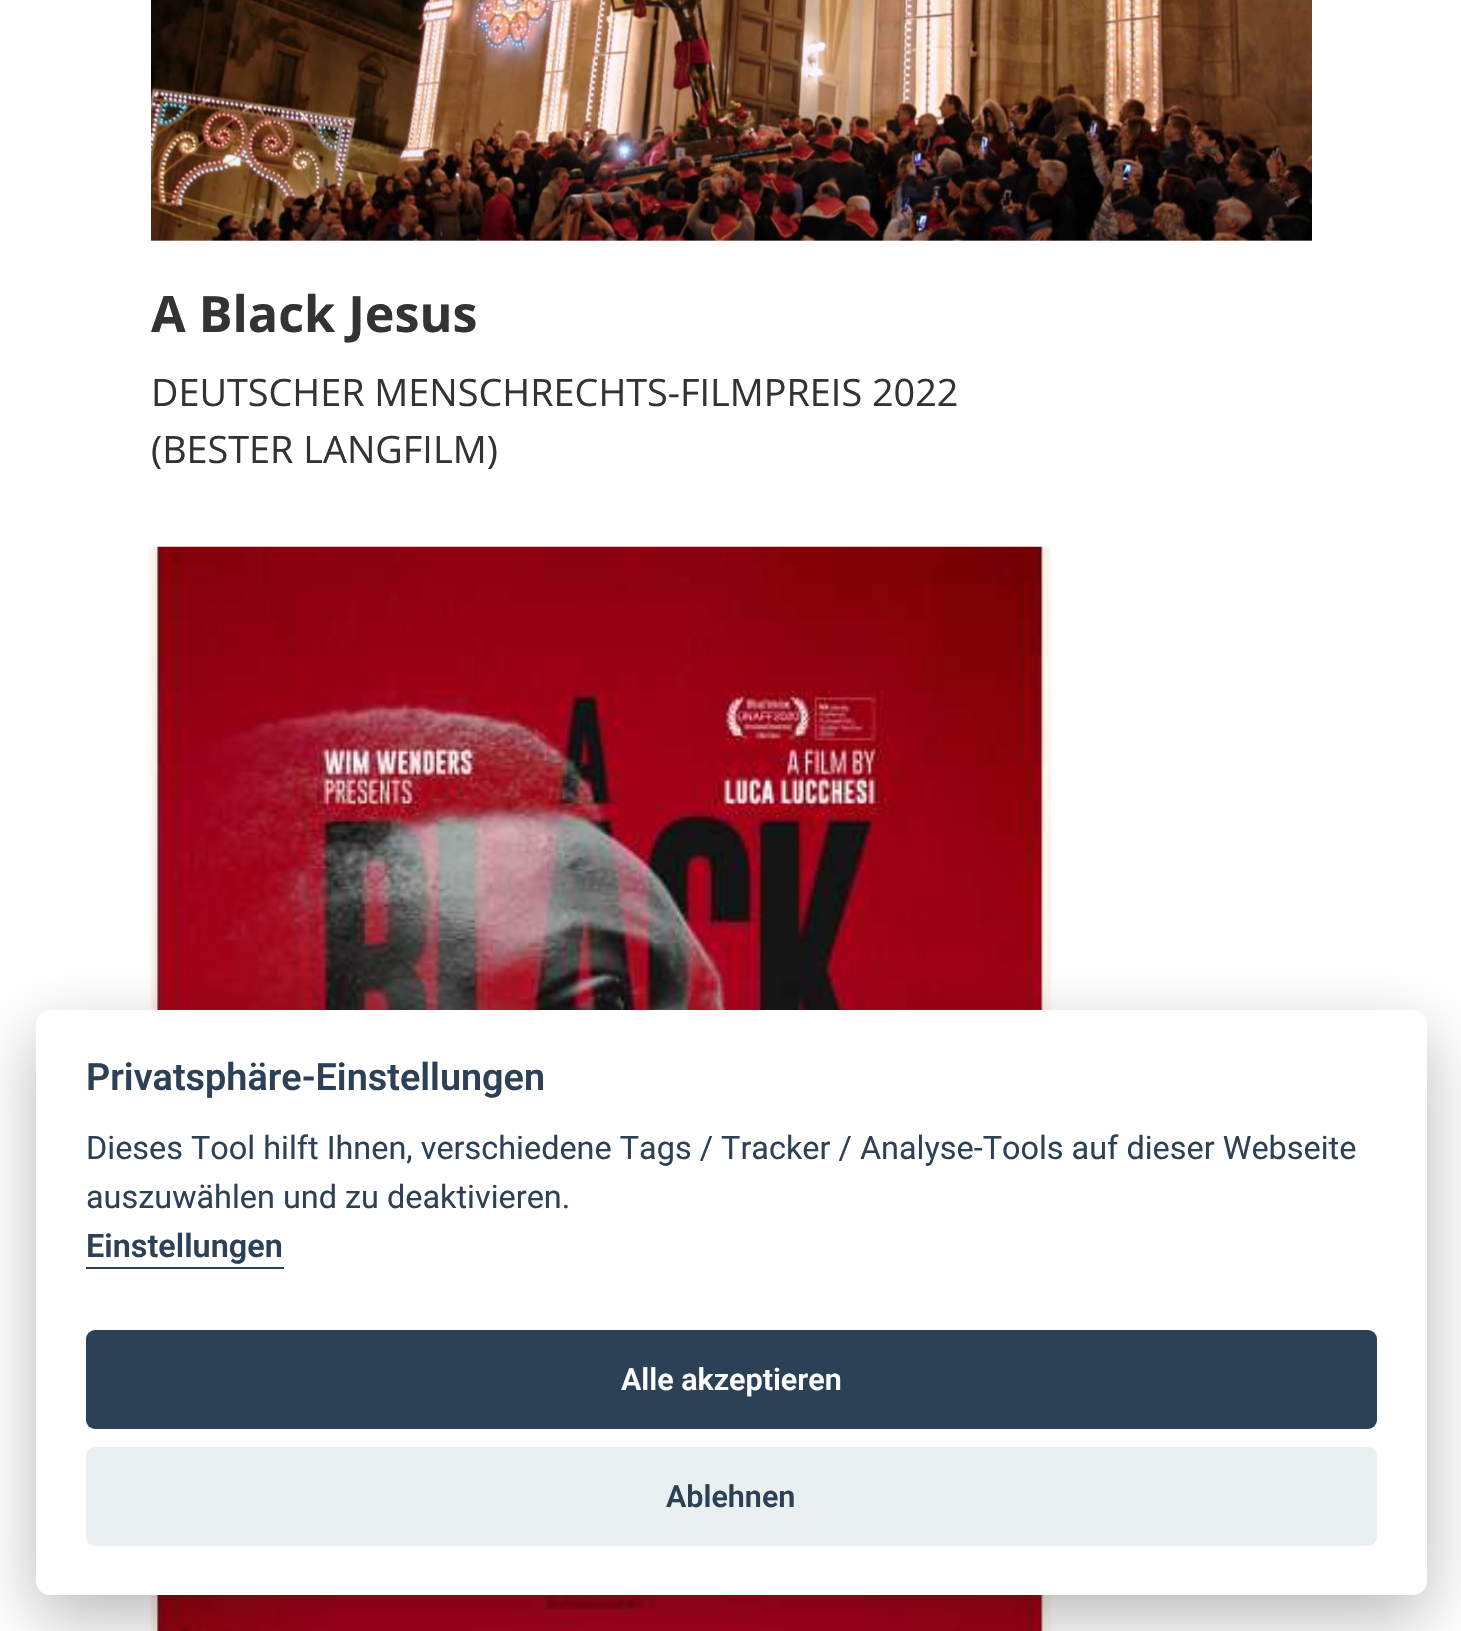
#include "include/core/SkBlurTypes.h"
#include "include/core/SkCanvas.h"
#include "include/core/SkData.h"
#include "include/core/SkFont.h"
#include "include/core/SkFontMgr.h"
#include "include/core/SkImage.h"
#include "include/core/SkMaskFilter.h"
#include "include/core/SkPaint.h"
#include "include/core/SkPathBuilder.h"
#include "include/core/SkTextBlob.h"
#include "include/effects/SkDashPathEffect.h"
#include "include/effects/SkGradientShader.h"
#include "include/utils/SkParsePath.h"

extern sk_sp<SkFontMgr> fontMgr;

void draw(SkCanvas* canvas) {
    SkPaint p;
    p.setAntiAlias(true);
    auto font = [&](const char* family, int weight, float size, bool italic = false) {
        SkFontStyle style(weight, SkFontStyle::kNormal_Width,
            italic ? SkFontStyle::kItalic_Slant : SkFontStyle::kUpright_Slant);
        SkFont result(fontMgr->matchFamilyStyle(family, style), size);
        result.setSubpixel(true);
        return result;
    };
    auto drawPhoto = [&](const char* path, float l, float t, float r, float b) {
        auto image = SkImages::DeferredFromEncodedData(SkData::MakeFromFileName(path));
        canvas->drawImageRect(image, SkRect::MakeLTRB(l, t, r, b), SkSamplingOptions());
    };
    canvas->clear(0xFFFFFFFF);
    drawPhoto("media/1.png", 151, 0, 1312, 241);
    auto font1 = font("Open Sans", 700, 50.25f);
    p.setColor(0xFF333333);
    canvas->drawString("A Black Jesus", 151, 332, font1, p);
    auto font2 = font("Open Sans", 400, 37.8f);
    canvas->drawString("DEUTSCHER MENSCHRECHTS-FILMPREIS 2022", 151, 406, font2, p);
    canvas->drawString("(BESTER LANGFILM)", 151, 463, font2, p);
    drawPhoto("media/2.png", 150, 546, 1051, 1631);
    p.setColor(0x47020203);
    p.setMaskFilter(SkMaskFilter::MakeBlur(kNormal_SkBlurStyle, 34));
    canvas->drawRoundRect(SkRect::MakeLTRB(36, 1033, 1427, 1618), 14, 14, p);
    p.setMaskFilter(nullptr);
    p.setColor(0xFFFFFFFF);
    canvas->drawRoundRect(SkRect::MakeLTRB(36, 1010, 1427, 1595), 14, 14, p);
    auto font3 = font("Roboto", 600, 37.8f);
    p.setColor(0xFF2D4156);
    canvas->drawString("Privatsphäre-Einstellungen", 86, 1090, font3, p);
    auto font4 = font("Roboto", 400, 32.4f);
    canvas->drawString("Dieses Tool hilft Ihnen, verschiedene Tags / Tracker / Analyse-Tools auf dieser Webseite", 86, 1159, font4, p);
    canvas->drawString("auszuwählen und zu deaktivieren.", 86, 1208, font4, p);
    auto font5 = font("Roboto", 600, 32.4f);
    canvas->drawString("Einstellungen", 86, 1257, font5, p);
    canvas->drawRect(SkRect::MakeLTRB(86, 1267, 284, 1269), p);
    canvas->drawRoundRect(SkRect::MakeLTRB(86, 1330, 1377, 1429), 9, 9, p);
    auto font6 = font("Roboto", 600, 30.5f);
    p.setColor(0xFFFFFFFF);
    canvas->drawString("Alle akzeptieren", 621, 1390, font6, p);
    p.setColor(0xFFEAEFF2);
    canvas->drawRoundRect(SkRect::MakeLTRB(86, 1447, 1377, 1546), 9, 9, p);
    p.setColor(0xFF2D4156);
    canvas->drawString("Ablehnen", 666, 1507, font6, p);
}
